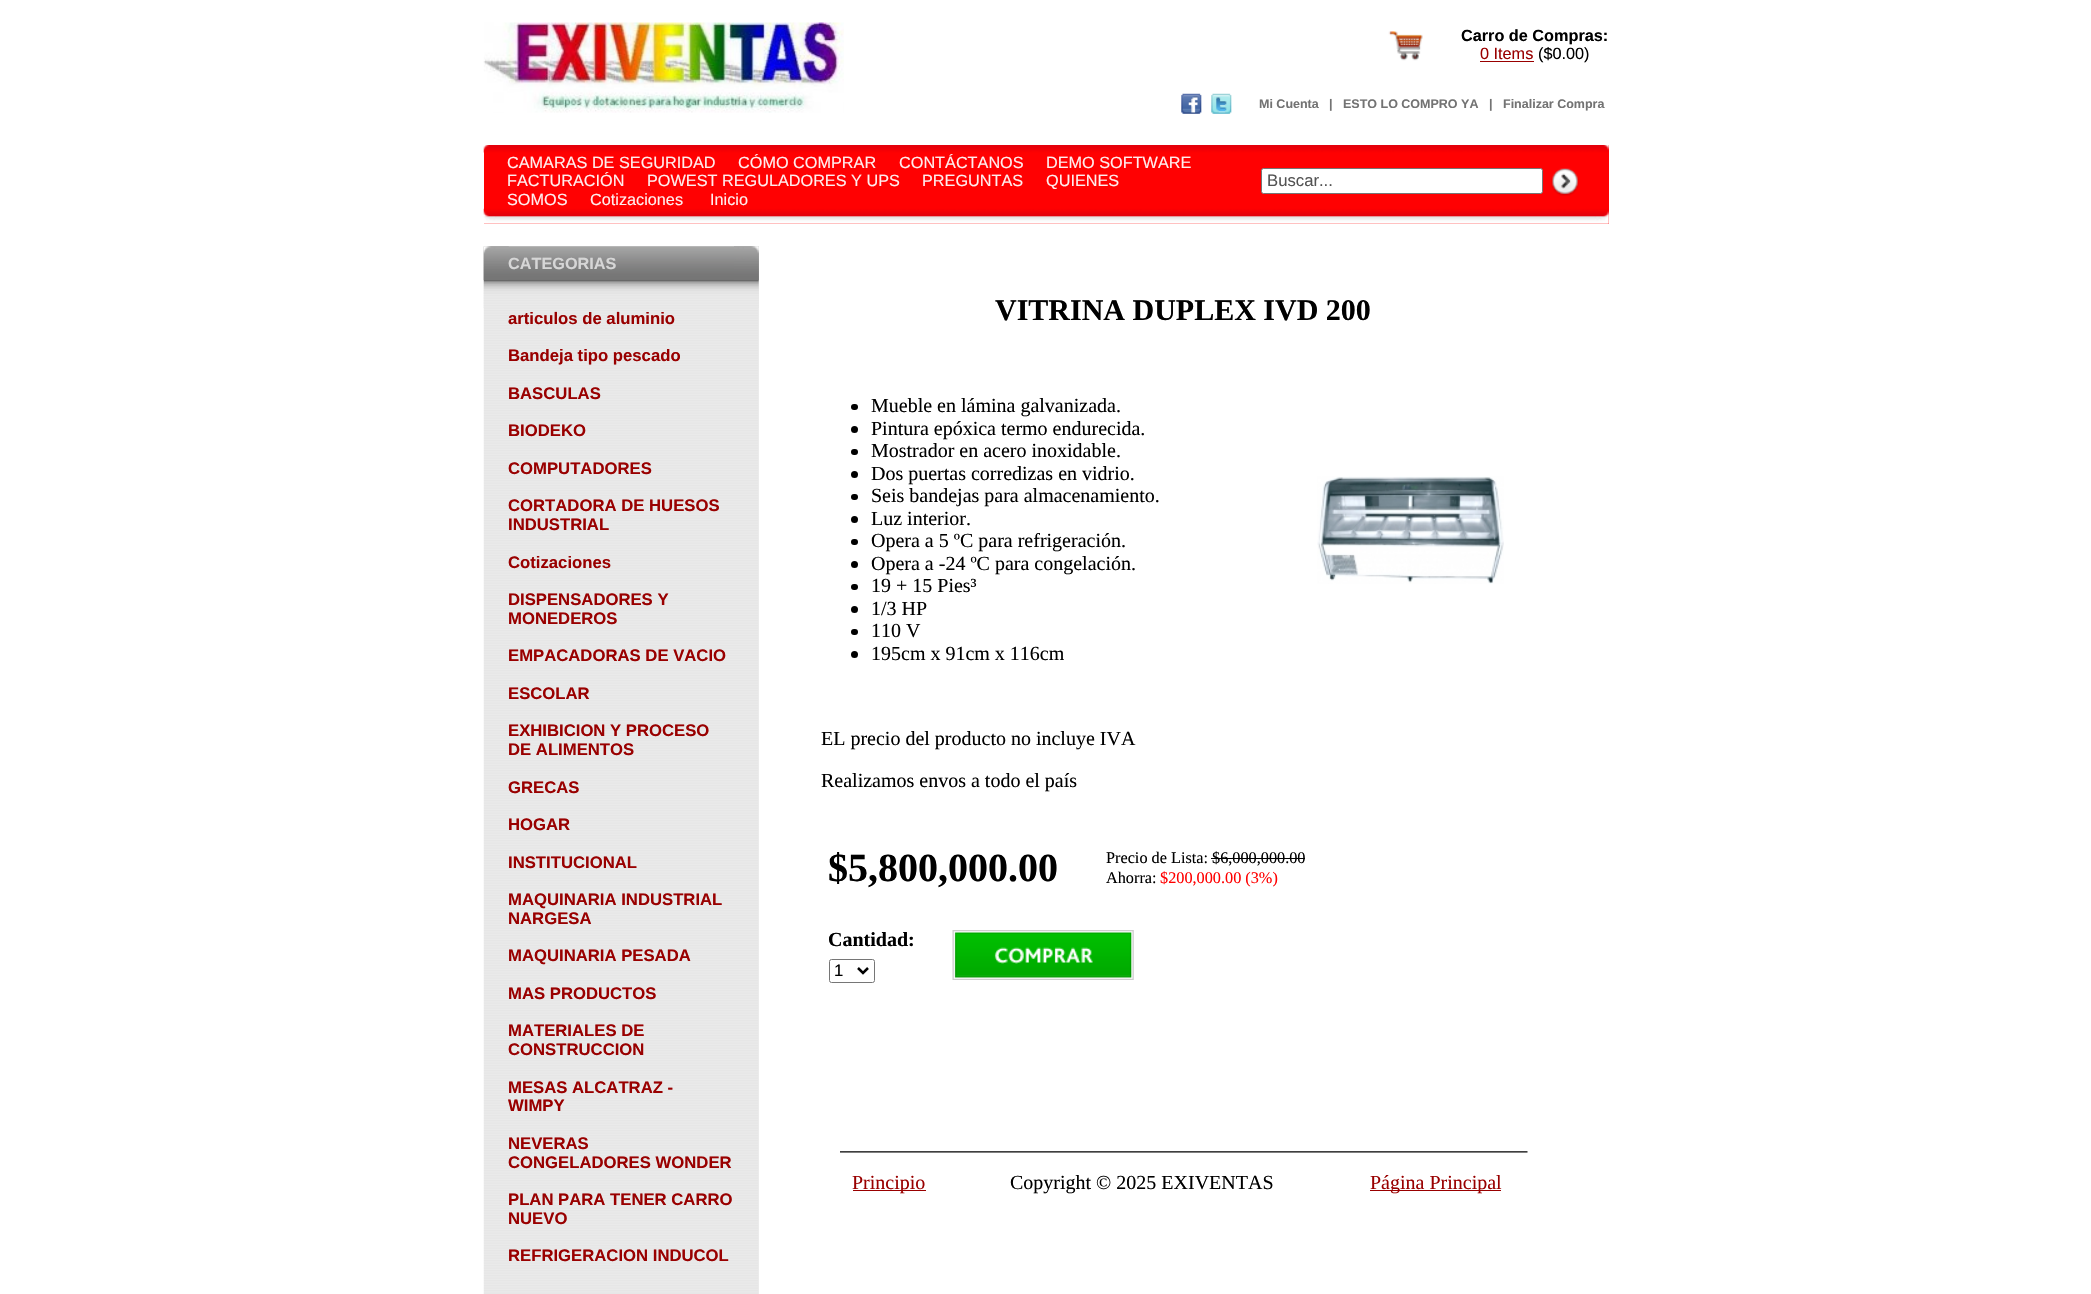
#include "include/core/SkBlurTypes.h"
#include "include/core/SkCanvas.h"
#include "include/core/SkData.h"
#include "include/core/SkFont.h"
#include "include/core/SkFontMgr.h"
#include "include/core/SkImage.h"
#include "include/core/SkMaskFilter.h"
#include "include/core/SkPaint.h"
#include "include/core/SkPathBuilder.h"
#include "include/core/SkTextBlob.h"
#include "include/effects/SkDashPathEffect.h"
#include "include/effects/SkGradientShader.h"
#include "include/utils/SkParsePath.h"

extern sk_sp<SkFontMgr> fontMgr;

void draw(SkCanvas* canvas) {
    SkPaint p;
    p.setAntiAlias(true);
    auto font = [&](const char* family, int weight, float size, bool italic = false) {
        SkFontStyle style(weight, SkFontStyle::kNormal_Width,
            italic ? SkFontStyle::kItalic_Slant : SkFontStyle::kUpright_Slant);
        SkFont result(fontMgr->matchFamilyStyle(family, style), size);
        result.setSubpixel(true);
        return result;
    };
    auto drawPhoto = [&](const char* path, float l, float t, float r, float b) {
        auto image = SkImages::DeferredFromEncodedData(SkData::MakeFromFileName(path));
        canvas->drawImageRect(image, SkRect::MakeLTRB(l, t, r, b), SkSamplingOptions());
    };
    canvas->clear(0xFFFFFFFF);
    drawPhoto("media/1.png", 483, 22, 844, 113);
    drawPhoto("media/2.png", 1388, 31, 1423, 61);
    auto font1 = font("Liberation Sans", 700, 16.25f);
    p.setColor(0xFF000000);
    canvas->drawString("Carro de Compras:", 1461, 41, font1, p);
    auto font2 = font("Liberation Sans", 400, 16.25f);
    p.setColor(0xFF990000);
    canvas->drawString("0 Items", 1480, 59, font2, p);
    canvas->drawRect(SkRect::MakeLTRB(1480, 61, 1534, 62), p);
    p.setColor(0xFF000000);
    canvas->drawString("($0.00)", 1538, 59, font2, p);
    drawPhoto("media/3.png", 1181, 93, 1202, 114);
    drawPhoto("media/4.png", 1211, 93, 1232, 114);
    auto font3 = font("Liberation Sans", 700, 12.5f);
    p.setColor(0xFF737373);
    {
        const struct { const char* s; float x, y; } items[] = {
            {"Mi Cuenta", 1259, 108},
            {"|", 1329, 108},
            {"ESTO LO COMPRO YA", 1343, 108},
            {"|", 1489, 108},
            {"Finalizar Compra", 1503, 108},
        };
        for (auto [s, x, y] : items) {
            canvas->drawString(s, x, y, font3, p);
        }
    }
    p.setColor(0xFFFF0102);
    canvas->drawRect(SkRect::MakeLTRB(484, 145, 1609, 224), p);
    drawPhoto("media/5.png", 483, 145, 1609, 153);
    p.setColor(0xFFFFEEEE);
    {
        const struct { const char* s; float x, y; } items[] = {
            {"CAMARAS DE SEGURIDAD", 507, 168},
            {"CÓMO COMPRAR", 738, 168},
            {"CONTÁCTANOS", 899, 168},
            {"DEMO SOFTWARE", 1046, 168},
            {"FACTURACIÓN", 507, 186},
            {"POWEST REGULADORES Y UPS", 647, 186},
            {"PREGUNTAS", 922, 186},
            {"QUIENES", 1046, 186},
            {"SOMOS", 507, 205},
            {"Cotizaciones", 590, 205},
            {"Inicio", 710, 205},
        };
        for (auto [s, x, y] : items) {
            canvas->drawString(s, x, y, font2, p);
        }
    }
    p.setColor(0xFFFFFFFF);
    canvas->drawRoundRect(SkRect::MakeLTRB(1261.5f, 168.5f, 1542.5f, 193.5f), 2, 2, p);
    p.setStyle(SkPaint::kStroke_Style);
    p.setStrokeWidth(1);
    p.setColor(0xFF767676);
    canvas->drawRoundRect(SkRect::MakeLTRB(1261.5f, 168.5f, 1542.5f, 193.5f), 2, 2, p);
    auto font4 = font("Liberation Sans", 400, 16.7f);
    p.setStyle(SkPaint::kFill_Style);
    p.setColor(0xFF535353);
    canvas->drawString("Buscar...", 1267, 186, font4, p);
    drawPhoto("media/6.png", 1551, 168, 1579, 196);
    drawPhoto("media/7.png", 483, 208, 1609, 224);
    p.setColor(0xFFEBEBEB);
    canvas->drawRect(SkRect::MakeLTRB(484, 246, 759, 1294), p);
    drawPhoto("media/8.png", 483, 247, 758, 1294);
    drawPhoto("media/9.png", 483, 246, 759, 280);
    drawPhoto("media/10.png", 483, 246, 509, 280);
    p.setColor(0xFFD6D6D6);
    canvas->drawString("CATEGORIAS", 508, 269, font1, p);
    drawPhoto("media/11.png", 734, 246, 759, 280);
    drawPhoto("media/12.png", 483, 280, 759, 308);
    auto font5 = font("Liberation Sans", 700, 16.7f);
    p.setColor(0xFF990000);
    {
        const struct { const char* s; float x, y; } items[] = {
            {"articulos de aluminio", 508, 324},
            {"Bandeja tipo pescado", 508, 361},
            {"BASCULAS", 508, 399},
            {"BIODEKO", 508, 436},
            {"COMPUTADORES", 508, 474},
            {"CORTADORA DE HUESOS", 508, 511},
            {"INDUSTRIAL", 508, 530},
            {"Cotizaciones", 508, 568},
            {"DISPENSADORES Y", 508, 605},
            {"MONEDEROS", 508, 624},
            {"EMPACADORAS DE VACIO", 508, 661},
            {"ESCOLAR", 508, 699},
            {"EXHIBICION Y PROCESO", 508, 736},
            {"DE ALIMENTOS", 508, 755},
            {"GRECAS", 508, 793},
            {"HOGAR", 508, 830},
            {"INSTITUCIONAL", 508, 868},
            {"MAQUINARIA INDUSTRIAL", 508, 905},
            {"NARGESA", 508, 924},
            {"MAQUINARIA PESADA", 508, 961},
            {"MAS PRODUCTOS", 508, 999},
            {"MATERIALES DE", 508, 1036},
            {"CONSTRUCCION", 508, 1055},
            {"MESAS ALCATRAZ -", 508, 1093},
            {"WIMPY", 508, 1111},
            {"NEVERAS", 508, 1149},
            {"CONGELADORES WONDER", 508, 1168},
            {"PLAN PARA TENER CARRO", 508, 1205},
            {"NUEVO", 508, 1224},
            {"REFRIGERACION INDUCOL", 508, 1261},
        };
        for (auto [s, x, y] : items) {
            canvas->drawString(s, x, y, font5, p);
        }
    }
    auto font6 = font("Liberation Serif", 700, 30);
    p.setColor(0xFF000000);
    canvas->drawString("VITRINA DUPLEX IVD 200", 995, 320, font6, p);
    canvas->drawRoundRect(SkRect::MakeLTRB(851, 404, 858, 410), 3, 3, p);
    auto font7 = font("Liberation Serif", 400, 20);
    canvas->drawString("Mueble en lámina galvanizada.", 871, 412, font7, p);
    canvas->drawCircle(854.5f, 429.5f, 3.5f, p);
    canvas->drawString("Pintura epóxica termo endurecida.", 871, 435, font7, p);
    canvas->drawRoundRect(SkRect::MakeLTRB(851, 449, 858, 455), 3, 3, p);
    canvas->drawString("Mostrador en acero inoxidable.", 871, 457, font7, p);
    canvas->drawCircle(854.5f, 474.5f, 3.5f, p);
    canvas->drawString("Dos puertas corredizas en vidrio.", 871, 480, font7, p);
    canvas->drawRoundRect(SkRect::MakeLTRB(851, 494, 858, 500), 3, 3, p);
    canvas->drawString("Seis bandejas para almacenamiento.", 871, 502, font7, p);
    canvas->drawCircle(854.5f, 519.5f, 3.5f, p);
    canvas->drawString("Luz interior.", 871, 525, font7, p);
    canvas->drawRoundRect(SkRect::MakeLTRB(851, 539, 858, 545), 3, 3, p);
    canvas->drawString("Opera a 5 ºC para refrigeración.", 871, 547, font7, p);
    canvas->drawCircle(854.5f, 564.5f, 3.5f, p);
    canvas->drawString("Opera a -24 ºC para congelación.", 871, 570, font7, p);
    canvas->drawRoundRect(SkRect::MakeLTRB(851, 584, 858, 590), 3, 3, p);
    canvas->drawString("19 + 15 Pies³", 871, 592, font7, p);
    canvas->drawCircle(854.5f, 609.5f, 3.5f, p);
    canvas->drawString("1/3 HP", 871, 615, font7, p);
    canvas->drawRoundRect(SkRect::MakeLTRB(851, 629, 858, 635), 3, 3, p);
    canvas->drawString("110 V", 871, 637, font7, p);
    canvas->drawCircle(854.5f, 654.5f, 3.5f, p);
    canvas->drawString("195cm x 91cm x 116cm", 871, 660, font7, p);
    drawPhoto("media/13.png", 1317, 476, 1504, 584);
    canvas->drawString("EL precio del producto no incluye IVA", 821, 745, font7, p);
    canvas->drawString("Realizamos envos a todo el país", 821, 787, font7, p);
    auto font8 = font("Liberation Serif", 700, 40);
    canvas->drawString("$5,800,000.00", 828, 881, font8, p);
    auto font9 = font("Liberation Serif", 400, 16.25f);
    canvas->drawString("Precio de Lista: $6,000,000.00", 1106, 863, font9, p);
    canvas->drawRect(SkRect::MakeLTRB(1211, 858, 1305, 859), p);
    canvas->drawString("Ahorra:", 1106, 883, font9, p);
    p.setColor(0xFFFF0000);
    canvas->drawString("$200,000.00 (3%)", 1160, 883, font9, p);
    auto font10 = font("Liberation Serif", 700, 20);
    p.setColor(0xFF000000);
    canvas->drawString("Cantidad:", 828, 946, font10, p);
    p.setStyle(SkPaint::kStroke_Style);
    p.setColor(0xFF767676);
    canvas->drawRoundRect(SkRect::MakeLTRB(829.5f, 959.5f, 874.5f, 982.5f), 2, 2, p);
    p.setStrokeWidth(2.5f);
    p.setColor(0xFF000000);
    canvas->drawPath(SkPathBuilder().moveTo(858, 968).lineTo(863, 973).lineTo(868, 968).detach(), p);
    p.setStyle(SkPaint::kFill_Style);
    canvas->drawString("1", 834, 976, font4, p);
    drawPhoto("media/14.png", 952, 930, 1134, 980);
    drawPhoto("media/15.png", 840, 1151, 1528, 1153);
    p.setColor(0xFF990000);
    canvas->drawRect(SkRect::MakeLTRB(853, 1190, 926, 1191), p);
    canvas->drawString("Principio", 852, 1189, font7, p);
    p.setColor(0xFF000000);
    canvas->drawString("Copyright © 2025 EXIVENTAS", 1010, 1189, font7, p);
    p.setColor(0xFF990000);
    canvas->drawRect(SkRect::MakeLTRB(1370, 1190, 1501, 1191), p);
    canvas->drawString("Página Principal", 1370, 1189, font7, p);
}
